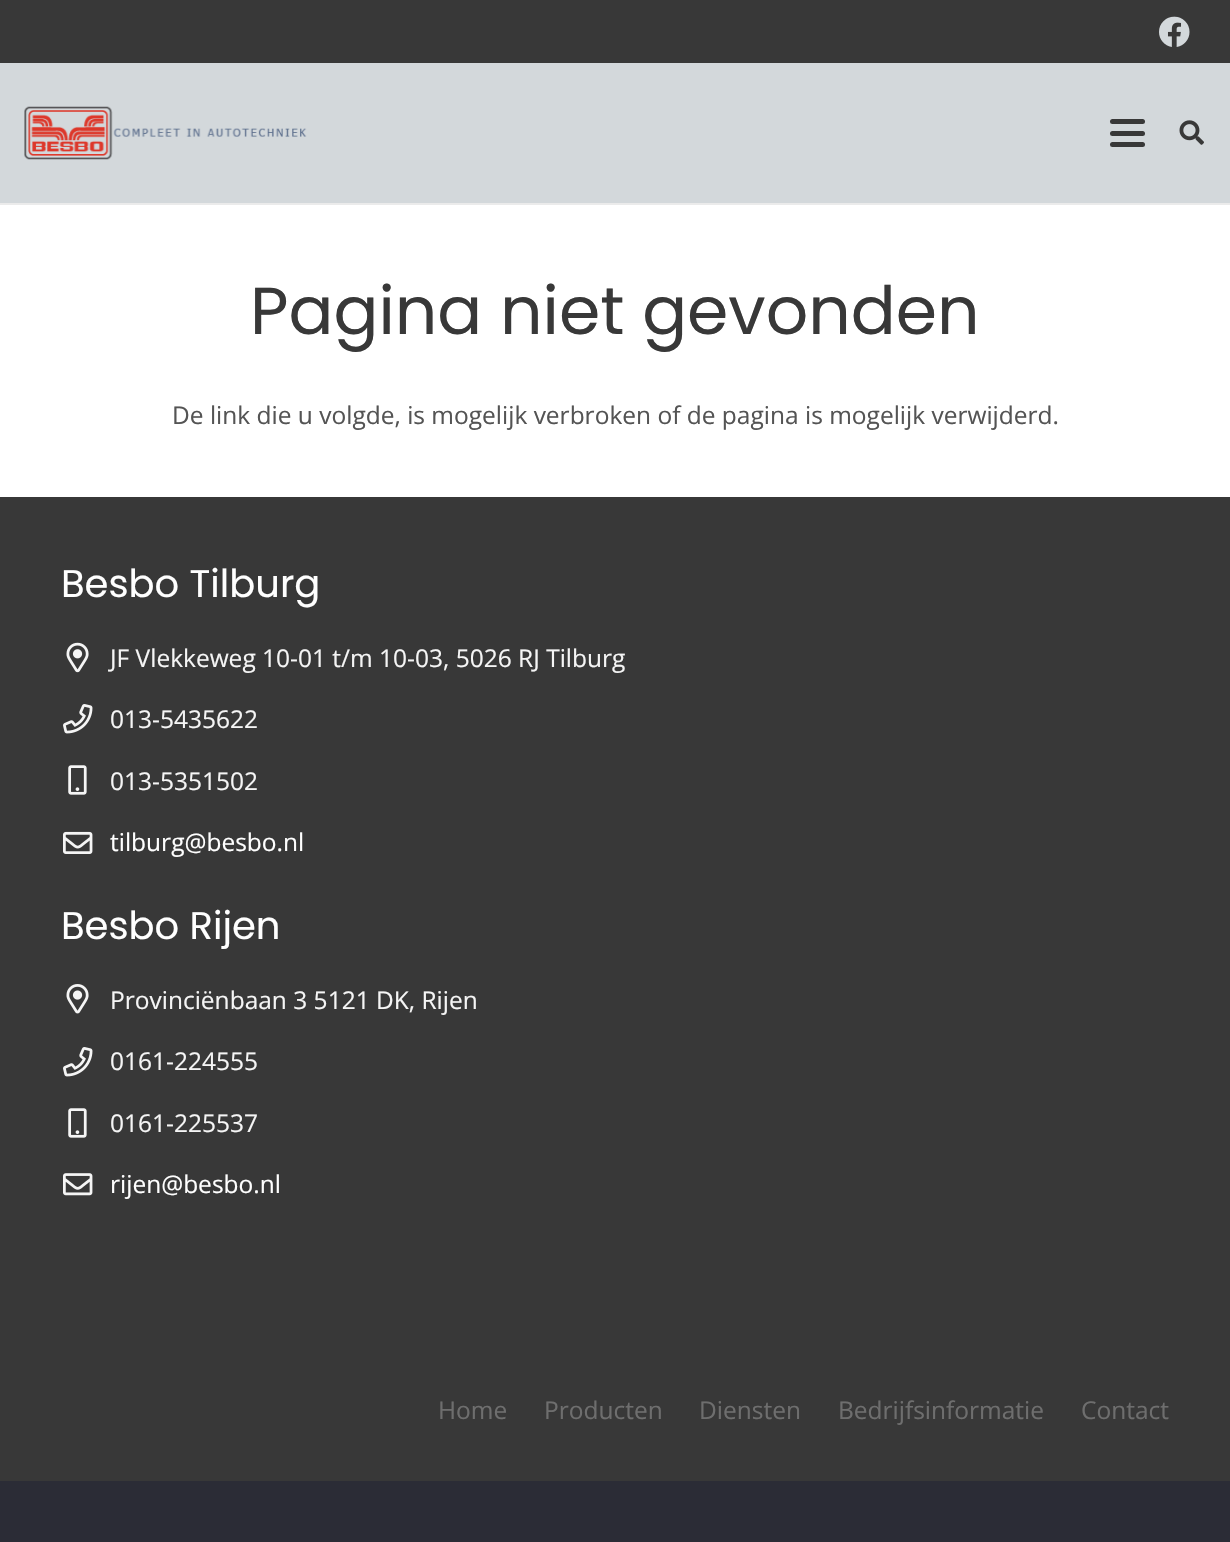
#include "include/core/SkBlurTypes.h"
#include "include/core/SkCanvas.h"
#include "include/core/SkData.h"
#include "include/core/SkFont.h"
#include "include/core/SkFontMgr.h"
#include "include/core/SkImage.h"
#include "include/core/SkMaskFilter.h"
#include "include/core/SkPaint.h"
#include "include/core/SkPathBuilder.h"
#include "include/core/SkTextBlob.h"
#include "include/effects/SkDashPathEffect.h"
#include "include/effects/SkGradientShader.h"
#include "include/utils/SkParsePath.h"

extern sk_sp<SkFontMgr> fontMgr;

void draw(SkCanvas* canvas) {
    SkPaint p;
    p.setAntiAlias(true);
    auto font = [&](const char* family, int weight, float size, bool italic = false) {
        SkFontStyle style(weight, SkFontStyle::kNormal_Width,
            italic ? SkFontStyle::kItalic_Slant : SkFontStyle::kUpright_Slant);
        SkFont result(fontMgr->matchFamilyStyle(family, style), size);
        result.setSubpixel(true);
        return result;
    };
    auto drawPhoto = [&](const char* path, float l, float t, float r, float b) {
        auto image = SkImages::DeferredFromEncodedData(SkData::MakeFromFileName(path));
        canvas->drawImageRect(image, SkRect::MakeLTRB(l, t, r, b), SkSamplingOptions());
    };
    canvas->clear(0xFF2B2C36);
    p.setColor(0xFFFFFFFF);
    canvas->drawRect(SkRect::MakeLTRB(0, 205, 1230, 497), p);
    p.setColor(0xFF383838);
    canvas->drawRect(SkRect::MakeLTRB(0, 0, 1230, 63), p);
    drawPhoto("media/1.png", 1159, 16, 1190, 47);
    p.setColor(0xFFEBEBEB);
    canvas->drawRect(SkRect::MakeLTRB(0, 203, 1230, 205), p);
    p.setColor(0xFFD3D8DB);
    canvas->drawRect(SkRect::MakeLTRB(0, 63, 1230, 203), p);
    drawPhoto("media/2.png", 24, 106, 307, 160);
    p.setColor(0xFF383838);
    canvas->drawRoundRect(SkRect::MakeLTRB(1110, 131, 1145, 136), 2.5f, 2.5f, p);
    canvas->drawRoundRect(SkRect::MakeLTRB(1110, 119, 1145, 124), 2.5f, 2.5f, p);
    canvas->drawRoundRect(SkRect::MakeLTRB(1110, 142, 1145, 147), 2.5f, 2.5f, p);
    drawPhoto("media/3.png", 1179, 120, 1204, 145);
    auto font1 = font("Poppins", 400, 66.5f);
    canvas->drawString("Pagina niet gevonden", 250, 334, font1, p);
    auto font2 = font("Open Sans", 400, 24.5f);
    p.setColor(0xFF545454);
    canvas->drawString("De link die u volgde, is mogelijk verbroken of de pagina is mogelijk verwijderd.", 172, 424, font2, p);
    p.setColor(0xFF383838);
    canvas->drawRect(SkRect::MakeLTRB(0, 497, 1230, 1481), p);
    auto font3 = font("Poppins", 400, 38.5f);
    p.setColor(0xFFFFFFFF);
    canvas->drawString("Besbo Tilburg", 61, 597, font3, p);
    drawPhoto("media/4.png", 66, 642, 89, 673);
    p.setColor(0xFFF5F5F5);
    canvas->drawString("JF Vlekkeweg 10-01 t/m 10-03, 5026 RJ Tilburg", 110, 667, font2, p);
    drawPhoto("media/5.png", 63, 704, 93, 734);
    canvas->drawString("013-5435622", 110, 728, font2, p);
    drawPhoto("media/6.png", 68, 765, 87, 795);
    canvas->drawString("013-5351502", 110, 790, font2, p);
    drawPhoto("media/7.png", 63, 831, 93, 854);
    p.setColor(0xFFFFFFFF);
    canvas->drawString("tilburg@besbo.nl", 110, 851, font2, p);
    canvas->drawString("Besbo Rijen", 61, 939, font3, p);
    drawPhoto("media/8.png", 66, 984, 89, 1014);
    p.setColor(0xFFF5F5F5);
    canvas->drawString("Provinciënbaan 3 5121 DK, Rijen", 110, 1009, font2, p);
    drawPhoto("media/5.png", 63, 1047, 93, 1077);
    canvas->drawString("0161-224555", 110, 1070, font2, p);
    drawPhoto("media/6.png", 68, 1108, 87, 1138);
    canvas->drawString("0161-225537", 110, 1132, font2, p);
    drawPhoto("media/9.png", 63, 1173, 93, 1196);
    p.setColor(0xFFFFFFFF);
    canvas->drawString("rijen@besbo.nl", 110, 1193, font2, p);
    p.setColor(0xFF6E6E6E);
    {
        const struct { const char* s; float x, y; } items[] = {
            {"Home", 438, 1419},
            {"Producten", 544, 1419},
            {"Diensten", 699, 1419},
            {"Bedrijfsinformatie", 838, 1419},
            {"Contact", 1081, 1419},
        };
        for (auto [s, x, y] : items) {
            canvas->drawString(s, x, y, font2, p);
        }
    }
}
